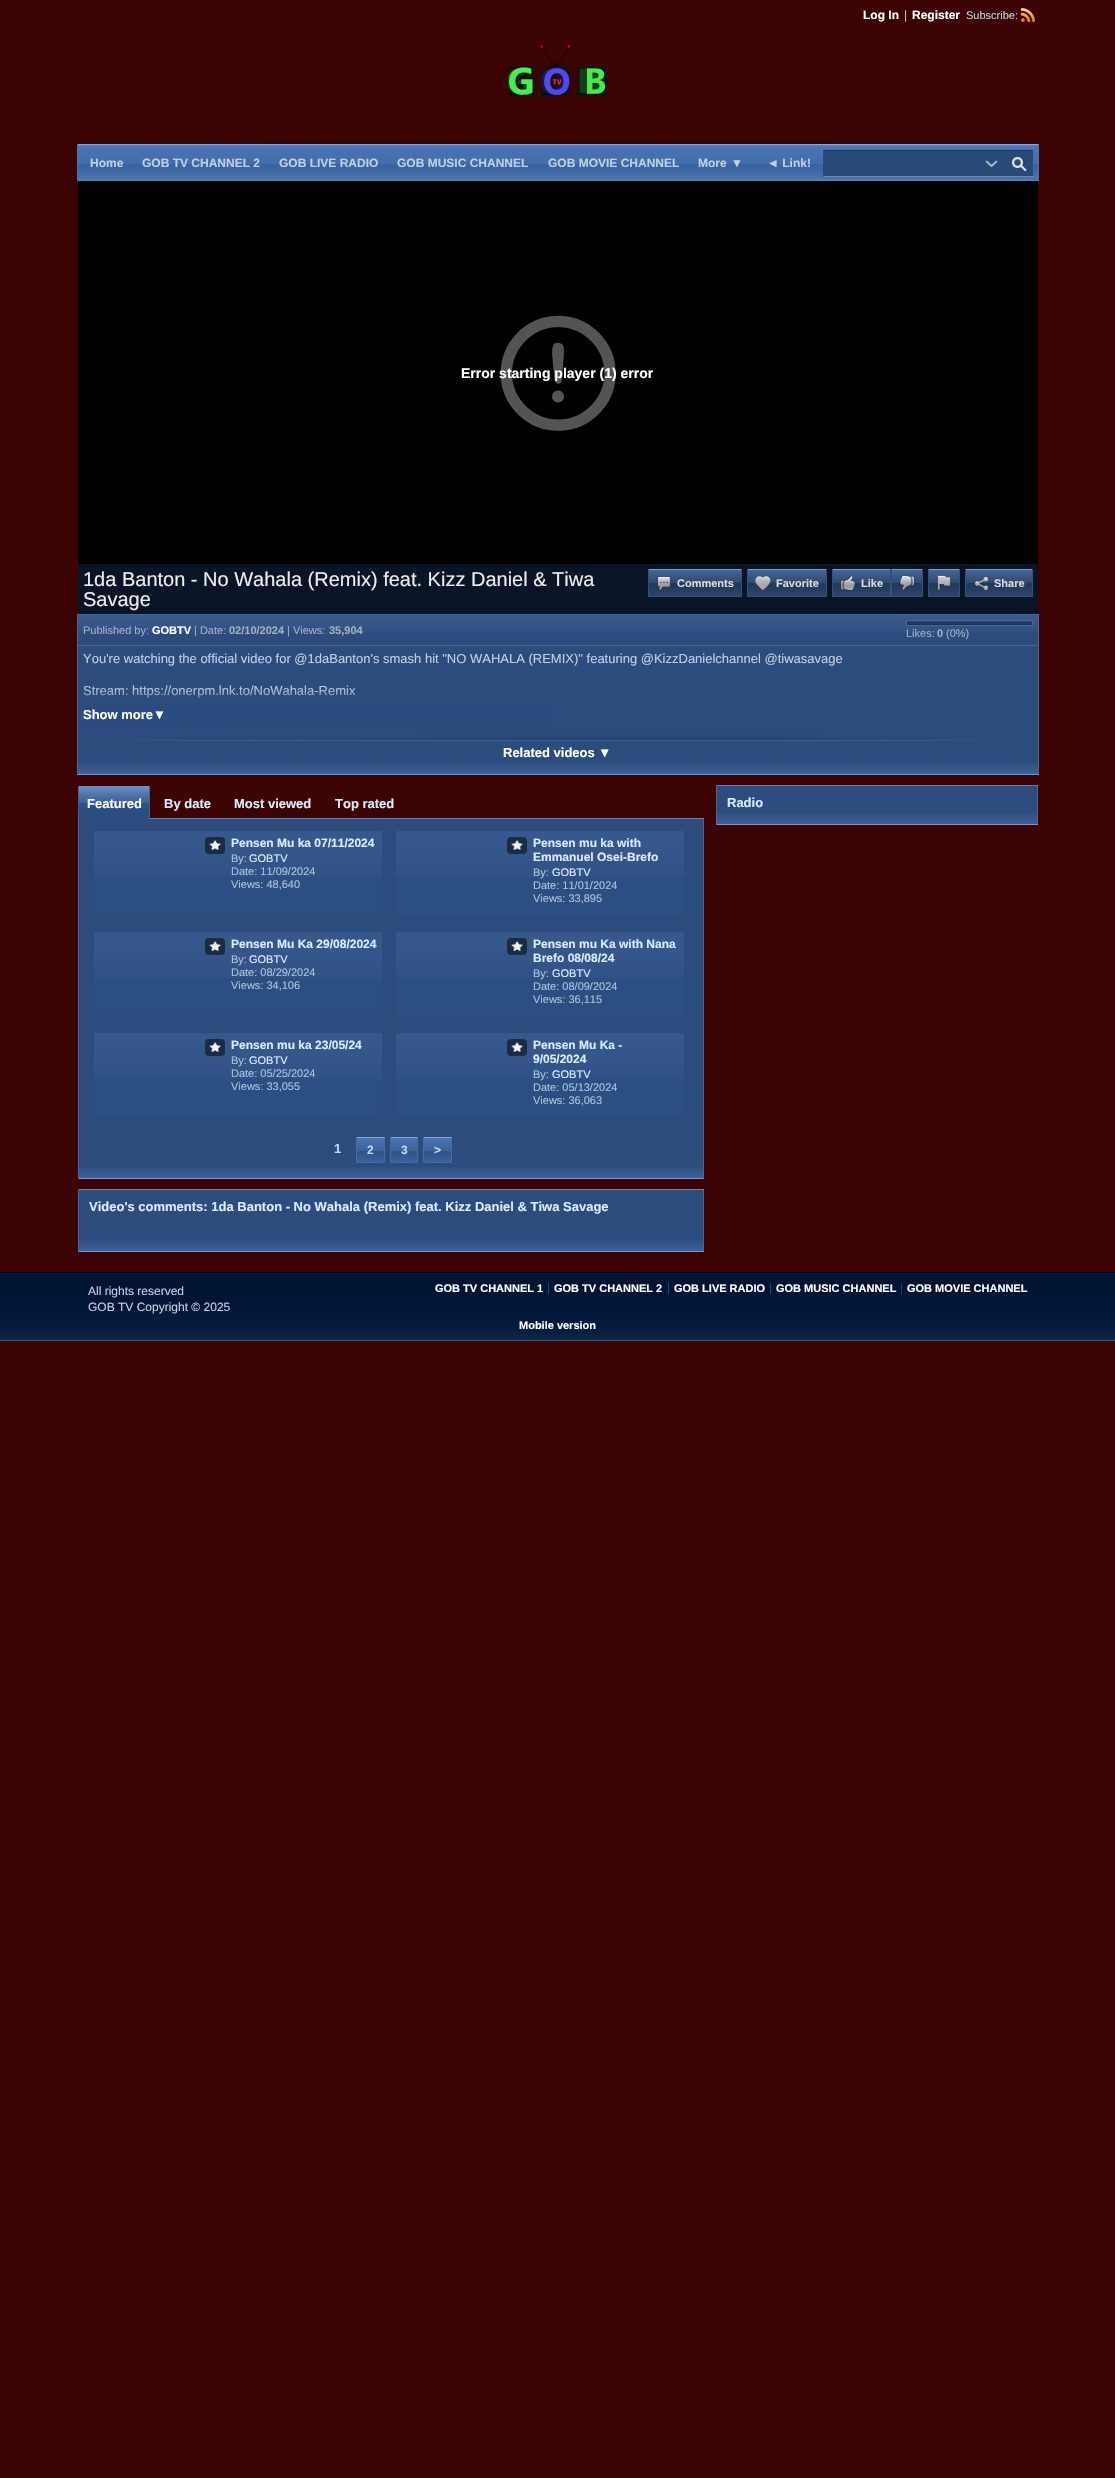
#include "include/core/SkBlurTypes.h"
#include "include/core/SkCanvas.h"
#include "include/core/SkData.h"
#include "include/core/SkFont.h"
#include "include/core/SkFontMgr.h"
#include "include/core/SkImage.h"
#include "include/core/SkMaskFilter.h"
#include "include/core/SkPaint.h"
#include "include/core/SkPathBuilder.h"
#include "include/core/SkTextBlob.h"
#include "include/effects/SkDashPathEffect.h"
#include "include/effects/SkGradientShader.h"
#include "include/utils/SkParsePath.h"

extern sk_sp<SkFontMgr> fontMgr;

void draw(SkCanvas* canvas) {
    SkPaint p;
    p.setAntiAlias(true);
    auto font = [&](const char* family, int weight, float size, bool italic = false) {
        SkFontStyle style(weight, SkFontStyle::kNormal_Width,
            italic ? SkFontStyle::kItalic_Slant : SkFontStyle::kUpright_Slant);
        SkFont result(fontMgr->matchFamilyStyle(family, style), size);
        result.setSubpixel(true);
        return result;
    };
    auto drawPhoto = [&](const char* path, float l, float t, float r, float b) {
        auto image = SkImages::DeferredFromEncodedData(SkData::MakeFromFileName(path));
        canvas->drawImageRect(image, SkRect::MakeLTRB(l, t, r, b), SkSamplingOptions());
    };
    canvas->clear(0xFF3B0303);
    drawPhoto("media/1.png", 165, 140, 919, 144);
    auto font1 = font("Liberation Sans", 700, 12);
    p.setColor(0xFFFFFFFF);
    canvas->drawString("Log In", 863, 19, font1, p);
    auto font2 = font("Liberation Sans", 400, 12);
    p.setColor(0xFFC1D0E0);
    canvas->drawString("|", 904, 19, font2, p);
    p.setColor(0xFFFFFFFF);
    canvas->drawString("Register", 912, 19, font1, p);
    auto font3 = font("Liberation Sans", 400, 11);
    p.setColor(0xFFC1D0E0);
    canvas->drawString("Subscribe:", 966, 19, font3, p);
    drawPhoto("media/2.png", 1021, 8, 1035, 22);
    drawPhoto("media/3.png", 508, 45, 607, 97);
    p.setColor(0xFF3762A3);
    canvas->drawPath(SkPathBuilder().moveTo(78, 144).lineTo(1038, 144).cubicTo(1038.5f, 144, 1039, 144.5f, 1039, 145).lineTo(1039, 181).lineTo(77, 181).lineTo(77, 145).cubicTo(77, 144.5f, 77.5f, 144, 78, 144).close().detach(), p);
    drawPhoto("media/4.png", 78, 145, 1038, 181);
    p.setColor(0xFF82A5DA);
    canvas->drawPath(SkPathBuilder().moveTo(78, 144).lineTo(78, 145).lineTo(1038, 145).lineTo(1039, 144).lineTo(1038, 144).close().detach(), p);
    p.setColor(0xFF4D72AC);
    canvas->drawPath(SkPathBuilder().moveTo(1038, 181).lineTo(1039, 181).lineTo(1039, 144).lineTo(1038, 145).close().detach(), p);
    canvas->drawPath(SkPathBuilder().moveTo(78, 145).lineTo(77.5f, 144.5f).lineTo(77, 145).lineTo(77, 181).lineTo(78, 181).close().detach(), p);
    p.setColor(0xFFC1D0E0);
    {
        const struct { const char* s; float x, y; } items[] = {
            {"Home", 90, 167},
            {"GOB TV CHANNEL 2", 142, 167},
            {"GOB LIVE RADIO", 279, 167},
            {"GOB MUSIC CHANNEL", 397, 167},
            {"GOB MOVIE CHANNEL", 548, 167},
            {"More", 698, 167},
            {"▼", 731, 167},
            {"◄ Link!", 767, 167},
        };
        for (auto [s, x, y] : items) {
            canvas->drawString(s, x, y, font1, p);
        }
    }
    p.setColor(0xFF294978);
    canvas->drawRoundRect(SkRect::MakeLTRB(823, 150, 1033, 177), 1, 1, p);
    drawPhoto("media/5.png", 823, 150, 1033, 151);
    p.setColor(0xFF6188C2);
    canvas->drawRect(SkRect::MakeLTRB(824, 176, 1033, 177), p);
    drawPhoto("media/6.png", 985, 160, 998, 167);
    drawPhoto("media/7.png", 1012, 157, 1027, 172);
    p.setColor(0xFF091527);
    canvas->drawRect(SkRect::MakeLTRB(78, 564, 1038, 614), p);
    p.setColor(0xFF000000);
    canvas->drawRect(SkRect::MakeLTRB(78, 181, 1038, 564), p);
    drawPhoto("media/8.png", 500, 315, 616, 431);
    auto font4 = font("Liberation Sans", 700, 14);
    p.setColor(0xFFFFFFFF);
    canvas->drawString("Error starting player (1) error", 461, 378, font4, p);
    auto font5 = font("Liberation Sans", 400, 20);
    p.setColor(0xFFEEEEEE);
    canvas->drawString("1da Banton - No Wahala (Remix) feat. Kizz Daniel & Tiwa", 83, 586, font5, p);
    canvas->drawString("Savage", 83, 606, font5, p);
    p.setColor(0xFF2C4468);
    canvas->drawRect(SkRect::MakeLTRB(649, 593, 741, 596), p);
    drawPhoto("media/9.png", 649, 570, 741, 593);
    {
        const struct { float l, t, r, b; SkColor color; } items[] = {
            {648, 569, 742, 570, 0xFF889CBD},
            {741, 569, 742, 597, 0xFF325180},
            {648, 596, 742, 597, 0xFF325180},
            {648, 569, 649, 597, 0xFF325180},
        };
        for (auto [l, t, r, b, color] : items) {
            p.setColor(color);
            canvas->drawRect(SkRect::MakeLTRB(l, t, r, b), p);
        }
    }
    drawPhoto("media/10.png", 657, 576, 671, 590);
    auto font6 = font("Liberation Sans", 700, 11);
    p.setColor(0xFFDDDDDD);
    canvas->drawString("Comments", 677, 587, font6, p);
    p.setColor(0xFF2C4468);
    canvas->drawRect(SkRect::MakeLTRB(748, 593, 826, 596), p);
    drawPhoto("media/11.png", 748, 570, 826, 593);
    {
        const struct { float l, t, r, b; SkColor color; } items[] = {
            {747, 569, 827, 570, 0xFF889CBD},
            {826, 569, 827, 597, 0xFF325180},
            {747, 596, 827, 597, 0xFF325180},
            {747, 569, 748, 597, 0xFF325180},
        };
        for (auto [l, t, r, b, color] : items) {
            p.setColor(color);
            canvas->drawRect(SkRect::MakeLTRB(l, t, r, b), p);
        }
    }
    drawPhoto("media/12.png", 755, 576, 771, 590);
    p.setColor(0xFFDDDDDD);
    canvas->drawString("Favorite", 776, 587, font6, p);
    p.setColor(0xFF2C4468);
    canvas->drawRect(SkRect::MakeLTRB(833, 592, 890, 596), p);
    drawPhoto("media/13.png", 833, 570, 890, 592);
    {
        const struct { float l, t, r, b; SkColor color; } items[] = {
            {832, 569, 923, 570, 0xFF889CBD},
            {890, 569, 891, 597, 0xFF325180},
            {832, 596, 891, 597, 0xFF325180},
            {832, 569, 833, 597, 0xFF325180},
        };
        for (auto [l, t, r, b, color] : items) {
            p.setColor(color);
            canvas->drawRect(SkRect::MakeLTRB(l, t, r, b), p);
        }
    }
    drawPhoto("media/14.png", 840, 575, 856, 591);
    p.setColor(0xFFDDDDDD);
    canvas->drawString("Like", 861, 587, font6, p);
    p.setColor(0xFF2C4468);
    canvas->drawRect(SkRect::MakeLTRB(892, 593, 922, 596), p);
    drawPhoto("media/15.png", 892, 570, 922, 593);
    {
        const struct { float l, t, r, b; SkColor color; } items[] = {
            {922, 569, 923, 597, 0xFF325180},
            {891, 596, 923, 597, 0xFF325180},
            {891, 569, 892, 597, 0xFF325180},
        };
        for (auto [l, t, r, b, color] : items) {
            p.setColor(color);
            canvas->drawRect(SkRect::MakeLTRB(l, t, r, b), p);
        }
    }
    drawPhoto("media/16.png", 899, 575, 915, 590);
    p.setColor(0xFF2C4468);
    canvas->drawRect(SkRect::MakeLTRB(929, 593, 959, 596), p);
    drawPhoto("media/15.png", 929, 570, 959, 593);
    {
        const struct { float l, t, r, b; SkColor color; } items[] = {
            {928, 569, 960, 570, 0xFF889CBD},
            {959, 569, 960, 597, 0xFF325180},
            {928, 596, 960, 597, 0xFF325180},
            {928, 569, 929, 597, 0xFF325180},
        };
        for (auto [l, t, r, b, color] : items) {
            p.setColor(color);
            canvas->drawRect(SkRect::MakeLTRB(l, t, r, b), p);
        }
    }
    drawPhoto("media/17.png", 937, 575, 951, 590);
    p.setColor(0xFF2C4468);
    canvas->drawRect(SkRect::MakeLTRB(966, 593, 1032, 596), p);
    drawPhoto("media/18.png", 966, 570, 1032, 593);
    {
        const struct { float l, t, r, b; SkColor color; } items[] = {
            {965, 569, 1033, 570, 0xFF889CBD},
            {1032, 569, 1033, 597, 0xFF325180},
            {965, 596, 1033, 597, 0xFF325180},
            {965, 569, 966, 597, 0xFF325180},
        };
        for (auto [l, t, r, b, color] : items) {
            p.setColor(color);
            canvas->drawRect(SkRect::MakeLTRB(l, t, r, b), p);
        }
    }
    drawPhoto("media/19.png", 975, 577, 988, 590);
    p.setColor(0xFFDDDDDD);
    canvas->drawString("Share", 994, 587, font6, p);
    p.setColor(0xFF2B4C7D);
    canvas->drawPath(SkPathBuilder().moveTo(77, 614).lineTo(1039, 614).lineTo(1039, 774).cubicTo(1039, 774.5f, 1038.5f, 775, 1038, 775).lineTo(78, 775).cubicTo(77.5f, 775, 77, 774.5f, 77, 774).close().detach(), p);
    drawPhoto("media/20.png", 78, 763, 1038, 774);
    p.setColor(0xFF4B6996);
    canvas->drawPath(SkPathBuilder().moveTo(1039, 614).lineTo(1038, 614).lineTo(1038, 774).lineTo(1039, 775).lineTo(1039, 774).close().detach(), p);
    p.setColor(0xFF749AD5);
    canvas->drawPath(SkPathBuilder().moveTo(78, 775).lineTo(1039, 775).lineTo(1038, 774).lineTo(78, 774).lineTo(77, 775).close().detach(), p);
    p.setColor(0xFF4B6996);
    canvas->drawPath(SkPathBuilder().moveTo(77, 614).lineTo(78, 614).lineTo(78, 774).lineTo(77, 775).lineTo(77, 774).close().detach(), p);
    drawPhoto("media/21.png", 78, 615, 1038, 633);
    p.setColor(0xFF486794);
    canvas->drawRect(SkRect::MakeLTRB(78, 614, 1038, 615), p);
    p.setColor(0xFF476694);
    canvas->drawRect(SkRect::MakeLTRB(78, 645, 1038, 646), p);
    p.setColor(0xFFA1B0C0);
    canvas->drawString("Published by:", 83, 634, font3, p);
    p.setColor(0xFFFFFFFF);
    canvas->drawString("GOBTV", 152, 634, font6, p);
    p.setColor(0xFFA1B0C0);
    canvas->drawString("| Date:", 194, 634, font3, p);
    canvas->drawString("02/10/2024", 229, 634, font6, p);
    canvas->drawString("| Views:", 287, 634, font3, p);
    canvas->drawString("35,904", 329, 634, font6, p);
    drawPhoto("media/22.png", 907, 621, 1032, 625);
    p.setStyle(SkPaint::kStroke_Style);
    p.setStrokeWidth(1);
    p.setColor(0xFF476694);
    canvas->drawRect(SkRect::MakeLTRB(906.5f, 620.5f, 1032.5f, 625.5f), p);
    p.setStyle(SkPaint::kFill_Style);
    p.setColor(0xFFA1B0C0);
    canvas->drawString("Likes:", 906, 637, font3, p);
    canvas->drawString("0", 937, 637, font6, p);
    canvas->drawString("(0%)", 946, 637, font3, p);
    auto font7 = font("Liberation Sans", 400, 13);
    p.setColor(0xFFC1D0E0);
    canvas->drawString("You're watching the official video for @1daBanton's smash hit \"NO WAHALA (REMIX)\" featuring @KizzDanielchannel @tiwasavage", 83, 663, font7, p);
    canvas->drawString("Stream: https://onerpm.lnk.to/NoWahala-Remix", 83, 695, font7, p);
    drawPhoto("media/23.png", 83, 687, 552, 726);
    auto font8 = font("Liberation Sans", 700, 13);
    p.setColor(0xFFFFFFFF);
    canvas->drawString("Show more▼", 83, 719, font8, p);
    drawPhoto("media/24.png", 128, 735, 984, 741);
    canvas->drawString("Related videos ▼", 503, 757, font8, p);
    p.setColor(0xFF6A83A9);
    canvas->drawRect(SkRect::MakeLTRB(150, 818, 704, 819), p);
    p.setColor(0xFF2B4C7D);
    canvas->drawPath(SkPathBuilder().moveTo(78, 819).lineTo(704, 819).lineTo(704, 1178).cubicTo(704, 1178.5f, 703.5f, 1179, 703, 1179).lineTo(79, 1179).cubicTo(78.5f, 1179, 78, 1178.5f, 78, 1178).close().detach(), p);
    drawPhoto("media/25.png", 79, 787, 149, 820);
    p.setColor(0xFF7591BB);
    canvas->drawPath(SkPathBuilder().moveTo(79, 786).lineTo(78, 786).lineTo(79, 787).lineTo(149, 787).lineTo(150, 786).lineTo(149, 786).close().detach(), p);
    p.setColor(0xFF45628F);
    canvas->drawPath(SkPathBuilder().moveTo(149, 820).lineTo(150, 820).lineTo(150, 786).lineTo(149, 787).close().detach(), p);
    p.setColor(0xFF4B6996);
    canvas->drawPath(SkPathBuilder().moveTo(704, 819).lineTo(703, 819).lineTo(703, 1178).lineTo(704, 1179).lineTo(704, 1178).close().detach(), p);
    p.setColor(0xFF749AD5);
    canvas->drawPath(SkPathBuilder().moveTo(79, 1179).lineTo(704, 1179).lineTo(703, 1178).lineTo(79, 1178).lineTo(78, 1179).close().detach(), p);
    p.setColor(0xFF4B6996);
    canvas->drawPath(SkPathBuilder().moveTo(78, 819).lineTo(79, 819).lineTo(79, 1178).lineTo(78, 1179).lineTo(78, 1178).close().detach(), p);
    p.setColor(0xFF45628F);
    canvas->drawPath(SkPathBuilder().moveTo(79, 787).lineTo(78.5f, 786.5f).lineTo(78, 787).lineTo(78, 820).lineTo(79, 820).close().detach(), p);
    p.setColor(0xFFFFFFFF);
    canvas->drawString("Featured", 87, 808, font8, p);
    p.setColor(0xFFDAECFF);
    {
        const struct { const char* s; float x, y; } items[] = {
            {"By date", 164, 808},
            {"Most viewed", 234, 808},
            {"Top rated", 335, 808},
        };
        for (auto [s, x, y] : items) {
            canvas->drawString(s, x, y, font8, p);
        }
    }
    drawPhoto("media/26.png", 79, 1167, 703, 1178);
    p.setColor(0xFF2B4E83);
    canvas->drawRoundRect(SkRect::MakeLTRB(94, 831, 382, 913), 1, 1, p);
    drawPhoto("media/27.png", 94, 831, 382, 877);
    p.setColor(0x80000000);
    canvas->drawRoundRect(SkRect::MakeLTRB(205, 837, 225, 854), 4, 4, p);
    drawPhoto("media/28.png", 209, 840, 221, 850);
    p.setColor(0xFFDAECFF);
    canvas->drawString("Pensen Mu ka 07/11/2024", 231, 847, font1, p);
    p.setColor(0xFFABC2DB);
    canvas->drawString("By:", 231, 862, font3, p);
    p.setColor(0xFFDAECFF);
    canvas->drawString("GOBTV", 249, 862, font3, p);
    p.setColor(0xFFABC2DB);
    canvas->drawString("Date: 11/09/2024", 231, 875, font3, p);
    canvas->drawString("Views: 48,640", 231, 888, font3, p);
    p.setColor(0xFF2B4E83);
    canvas->drawRoundRect(SkRect::MakeLTRB(396, 831, 684, 915), 1, 1, p);
    drawPhoto("media/27.png", 396, 831, 684, 877);
    p.setColor(0x80000000);
    canvas->drawRoundRect(SkRect::MakeLTRB(507, 837, 527, 854), 4, 4, p);
    drawPhoto("media/28.png", 511, 840, 523, 850);
    p.setColor(0xFFDAECFF);
    canvas->drawString("Pensen mu ka with", 533, 847, font1, p);
    canvas->drawString("Emmanuel Osei-Brefo", 533, 861, font1, p);
    p.setColor(0xFFABC2DB);
    canvas->drawString("By:", 533, 876, font3, p);
    p.setColor(0xFFDAECFF);
    canvas->drawString("GOBTV", 552, 876, font3, p);
    p.setColor(0xFFABC2DB);
    canvas->drawString("Date: 11/01/2024", 533, 889, font3, p);
    canvas->drawString("Views: 33,895", 533, 902, font3, p);
    p.setColor(0xFF2B4E83);
    canvas->drawRoundRect(SkRect::MakeLTRB(94, 932, 382, 1014), 1, 1, p);
    drawPhoto("media/27.png", 94, 932, 382, 978);
    p.setColor(0x80000000);
    canvas->drawRoundRect(SkRect::MakeLTRB(205, 938, 225, 955), 4, 4, p);
    drawPhoto("media/28.png", 209, 941, 221, 951);
    p.setColor(0xFFDAECFF);
    canvas->drawString("Pensen Mu Ka 29/08/2024", 231, 948, font1, p);
    p.setColor(0xFFABC2DB);
    canvas->drawString("By:", 231, 963, font3, p);
    p.setColor(0xFFDAECFF);
    canvas->drawString("GOBTV", 249, 963, font3, p);
    p.setColor(0xFFABC2DB);
    canvas->drawString("Date: 08/29/2024", 231, 976, font3, p);
    canvas->drawString("Views: 34,106", 231, 989, font3, p);
    p.setColor(0xFF2B4E83);
    canvas->drawRoundRect(SkRect::MakeLTRB(396, 932, 684, 1016), 1, 1, p);
    drawPhoto("media/27.png", 396, 932, 684, 978);
    p.setColor(0x80000000);
    canvas->drawRoundRect(SkRect::MakeLTRB(507, 938, 527, 955), 4, 4, p);
    drawPhoto("media/28.png", 511, 941, 523, 951);
    p.setColor(0xFFDAECFF);
    canvas->drawString("Pensen mu Ka with Nana", 533, 948, font1, p);
    canvas->drawString("Brefo 08/08/24", 533, 962, font1, p);
    p.setColor(0xFFABC2DB);
    canvas->drawString("By:", 533, 977, font3, p);
    p.setColor(0xFFDAECFF);
    canvas->drawString("GOBTV", 552, 977, font3, p);
    p.setColor(0xFFABC2DB);
    canvas->drawString("Date: 08/09/2024", 533, 990, font3, p);
    canvas->drawString("Views: 36,115", 533, 1003, font3, p);
    p.setColor(0xFF2B4E83);
    canvas->drawRoundRect(SkRect::MakeLTRB(94, 1033, 382, 1115), 1, 1, p);
    drawPhoto("media/27.png", 94, 1033, 382, 1079);
    p.setColor(0x80000000);
    canvas->drawRoundRect(SkRect::MakeLTRB(205, 1039, 225, 1056), 4, 4, p);
    drawPhoto("media/28.png", 209, 1042, 221, 1052);
    p.setColor(0xFFDAECFF);
    canvas->drawString("Pensen mu ka 23/05/24", 231, 1049, font1, p);
    p.setColor(0xFFABC2DB);
    canvas->drawString("By:", 231, 1064, font3, p);
    p.setColor(0xFFDAECFF);
    canvas->drawString("GOBTV", 249, 1064, font3, p);
    p.setColor(0xFFABC2DB);
    canvas->drawString("Date: 05/25/2024", 231, 1077, font3, p);
    canvas->drawString("Views: 33,055", 231, 1090, font3, p);
    p.setColor(0xFF2B4E83);
    canvas->drawRoundRect(SkRect::MakeLTRB(396, 1033, 684, 1117), 1, 1, p);
    drawPhoto("media/27.png", 396, 1033, 684, 1079);
    p.setColor(0x80000000);
    canvas->drawRoundRect(SkRect::MakeLTRB(507, 1039, 527, 1056), 4, 4, p);
    drawPhoto("media/28.png", 511, 1042, 523, 1052);
    p.setColor(0xFFDAECFF);
    canvas->drawString("Pensen Mu Ka -", 533, 1049, font1, p);
    canvas->drawString("9/05/2024", 533, 1063, font1, p);
    p.setColor(0xFFABC2DB);
    canvas->drawString("By:", 533, 1078, font3, p);
    p.setColor(0xFFDAECFF);
    canvas->drawString("GOBTV", 552, 1078, font3, p);
    p.setColor(0xFFABC2DB);
    canvas->drawString("Date: 05/13/2024", 533, 1091, font3, p);
    canvas->drawString("Views: 36,063", 533, 1104, font3, p);
    p.setColor(0xFFBFD9F4);
    canvas->drawString("1", 334, 1153, font8, p);
    p.setColor(0xFF30558C);
    canvas->drawRoundRect(SkRect::MakeLTRB(356, 1137, 385, 1163), 1, 1, p);
    drawPhoto("media/29.png", 356, 1138, 385, 1162);
    p.setColor(0xFF8AA5CE);
    canvas->drawRect(SkRect::MakeLTRB(357, 1137, 385, 1138), p);
    canvas->save();
    canvas->clipRect(SkRect::MakeLTRB(324, 1137, 457, 1163));
    p.setStyle(SkPaint::kStroke_Style);
    p.setColor(0xFF486DA4);
    canvas->drawPath(SkPathBuilder().moveTo(384.5f, 1137.5f).lineTo(384.5f, 1158).cubicTo(384.5f, 1164, 385.5f, 1162.5f, 379.5f, 1162.5f).lineTo(361.5f, 1162.5f).cubicTo(355.5f, 1162.5f, 356.5f, 1164, 356.5f, 1158).lineTo(356.5f, 1137.5f).detach(), p);
    canvas->restore();
    p.setStyle(SkPaint::kFill_Style);
    p.setColor(0xFFBFD9F4);
    canvas->drawString("2", 367, 1154, font1, p);
    p.setColor(0xFF30558C);
    canvas->drawRoundRect(SkRect::MakeLTRB(390, 1137, 418, 1163), 1, 1, p);
    drawPhoto("media/30.png", 390, 1138, 418, 1162);
    p.setColor(0xFF8AA5CE);
    canvas->drawRect(SkRect::MakeLTRB(391, 1137, 418, 1138), p);
    canvas->save();
    canvas->clipRect(SkRect::MakeLTRB(324, 1137, 457, 1163));
    p.setStyle(SkPaint::kStroke_Style);
    p.setColor(0xFF486DA4);
    canvas->drawPath(SkPathBuilder().moveTo(417.5f, 1137.5f).lineTo(417.5f, 1158).cubicTo(417.5f, 1163.5f, 418.5f, 1162.5f, 412.5f, 1162.5f).lineTo(395.5f, 1162.5f).cubicTo(389.5f, 1162.5f, 390.5f, 1163.5f, 390.5f, 1158).lineTo(390.5f, 1137.5f).detach(), p);
    canvas->restore();
    p.setStyle(SkPaint::kFill_Style);
    p.setColor(0xFFBFD9F4);
    canvas->drawString("3", 401, 1154, font1, p);
    p.setColor(0xFF30558C);
    canvas->drawRoundRect(SkRect::MakeLTRB(423, 1137, 452, 1163), 1, 1, p);
    drawPhoto("media/31.png", 423, 1138, 452, 1162);
    p.setColor(0xFF8AA5CE);
    canvas->drawRect(SkRect::MakeLTRB(424, 1137, 452, 1138), p);
    canvas->save();
    canvas->clipRect(SkRect::MakeLTRB(324, 1137, 457, 1163));
    p.setStyle(SkPaint::kStroke_Style);
    p.setColor(0xFF486DA4);
    canvas->drawPath(SkPathBuilder().moveTo(451.5f, 1137.5f).lineTo(451.5f, 1158).cubicTo(451.5f, 1164, 452.5f, 1162.5f, 446.5f, 1162.5f).lineTo(428.5f, 1162.5f).cubicTo(422.5f, 1162.5f, 423.5f, 1164, 423.5f, 1158).lineTo(423.5f, 1137.5f).detach(), p);
    canvas->restore();
    p.setStyle(SkPaint::kFill_Style);
    p.setColor(0xFFBFD9F4);
    canvas->drawString(">", 434, 1154, font1, p);
    p.setColor(0xFF2B4C7D);
    canvas->drawRoundRect(SkRect::MakeLTRB(78, 1189, 704, 1252), 1, 1, p);
    drawPhoto("media/26.png", 79, 1240, 703, 1251);
    {
        const struct { float l, t, r, b; SkColor color; } items[] = {
            {79, 1189, 704, 1190, 0xFF6983A8},
            {703, 1190, 704, 1252, 0xFF4B6996},
            {79, 1251, 704, 1252, 0xFF749AD5},
            {78, 1190, 79, 1252, 0xFF4B6996},
        };
        for (auto [l, t, r, b, color] : items) {
            p.setColor(color);
            canvas->drawRect(SkRect::MakeLTRB(l, t, r, b), p);
        }
    }
    p.setColor(0xFFDAECFF);
    canvas->drawString("Video's comments: 1da Banton - No Wahala (Remix) feat. Kizz Daniel & Tiwa Savage", 89, 1211, font8, p);
    p.setColor(0xFF2B4C7D);
    canvas->drawRoundRect(SkRect::MakeLTRB(716, 785, 1038, 825), 1, 1, p);
    drawPhoto("media/32.png", 717, 813, 1037, 824);
    {
        const struct { float l, t, r, b; SkColor color; } items[] = {
            {717, 785, 1038, 786, 0xFF6983A8},
            {1037, 786, 1038, 825, 0xFF4B6996},
            {717, 824, 1038, 825, 0xFF749AD5},
            {716, 786, 717, 825, 0xFF4B6996},
        };
        for (auto [l, t, r, b, color] : items) {
            p.setColor(color);
            canvas->drawRect(SkRect::MakeLTRB(l, t, r, b), p);
        }
    }
    p.setColor(0xFFDAECFF);
    canvas->drawString("Radio", 727, 807, font8, p);
    drawPhoto("media/33.png", 0, 1273, 1115, 1341);
    p.setColor(0xFF000000);
    canvas->drawRect(SkRect::MakeLTRB(0, 1272, 1115, 1273), p);
    p.setColor(0xFFC1D0E0);
    canvas->drawString("All rights reserved", 88, 1295, font2, p);
    canvas->drawString("GOB TV Copyright © 2025", 88, 1311, font2, p);
    p.setColor(0xFFFFFFFF);
    canvas->drawString("GOB TV CHANNEL 1", 435, 1292, font6, p);
    p.setColor(0xFF284062);
    canvas->drawRect(SkRect::MakeLTRB(548, 1283, 549, 1294), p);
    p.setColor(0xFFFFFFFF);
    canvas->drawString("GOB TV CHANNEL 2", 554, 1292, font6, p);
    p.setColor(0xFF284062);
    canvas->drawRect(SkRect::MakeLTRB(668, 1283, 669, 1294), p);
    p.setColor(0xFFFFFFFF);
    canvas->drawString("GOB LIVE RADIO", 674, 1292, font6, p);
    p.setColor(0xFF284062);
    canvas->drawRect(SkRect::MakeLTRB(770, 1283, 771, 1294), p);
    p.setColor(0xFFFFFFFF);
    canvas->drawString("GOB MUSIC CHANNEL", 776, 1292, font6, p);
    p.setColor(0xFF284062);
    canvas->drawRect(SkRect::MakeLTRB(901, 1283, 902, 1294), p);
    p.setColor(0xFFFFFFFF);
    canvas->drawString("GOB MOVIE CHANNEL", 907, 1292, font6, p);
    canvas->drawString("Mobile version", 519, 1329, font6, p);
}
